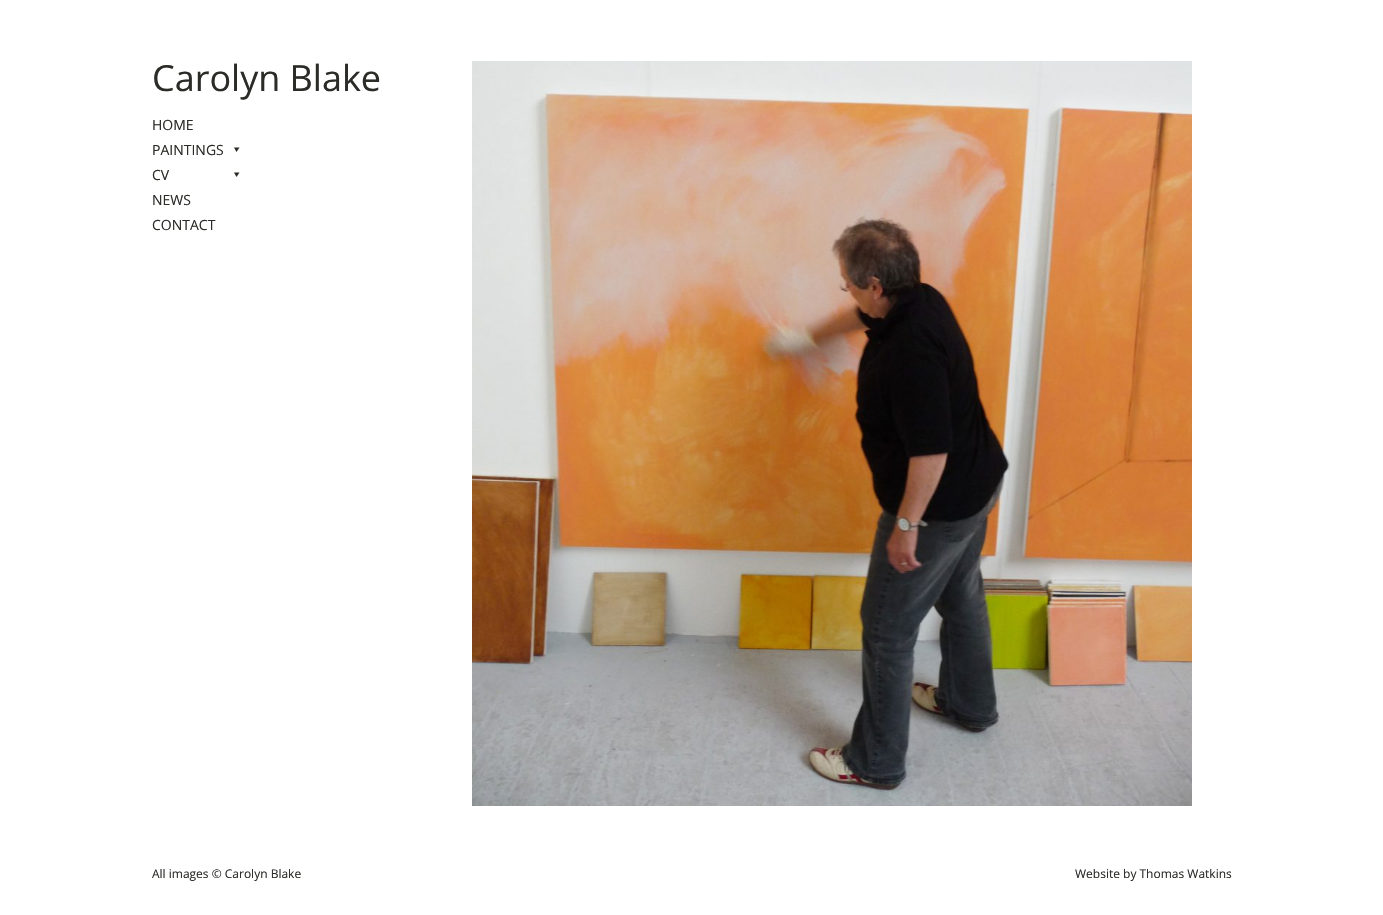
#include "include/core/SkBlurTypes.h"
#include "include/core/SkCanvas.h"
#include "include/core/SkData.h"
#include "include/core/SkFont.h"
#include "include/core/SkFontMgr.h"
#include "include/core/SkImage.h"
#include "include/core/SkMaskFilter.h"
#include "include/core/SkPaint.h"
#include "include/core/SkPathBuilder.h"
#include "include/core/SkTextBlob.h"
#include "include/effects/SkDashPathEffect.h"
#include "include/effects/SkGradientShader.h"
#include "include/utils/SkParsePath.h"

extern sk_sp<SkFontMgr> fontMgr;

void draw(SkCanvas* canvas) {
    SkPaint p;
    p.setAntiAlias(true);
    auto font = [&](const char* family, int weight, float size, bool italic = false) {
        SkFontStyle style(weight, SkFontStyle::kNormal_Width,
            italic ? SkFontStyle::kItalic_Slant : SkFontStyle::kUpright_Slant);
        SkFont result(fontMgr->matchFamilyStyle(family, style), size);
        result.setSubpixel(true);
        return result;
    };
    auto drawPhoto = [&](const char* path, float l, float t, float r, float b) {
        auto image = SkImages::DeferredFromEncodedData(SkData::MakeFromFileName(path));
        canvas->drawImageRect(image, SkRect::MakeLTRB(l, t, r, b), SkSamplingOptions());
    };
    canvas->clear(0xFFFFFFFF);
    auto font1 = font("Open Sans", 400, 36);
    p.setColor(0xFF2B2C28);
    canvas->drawString("Carolyn Blake", 152, 91, font1, p);
    auto font2 = font("Open Sans", 400, 14);
    canvas->drawString("HOME", 152, 130, font2, p);
    canvas->drawString("PAINTINGS", 152, 155, font2, p);
    canvas->drawPath(SkPathBuilder().moveTo(239.5f, 147.5f).lineTo(236.5f, 152).lineTo(234, 147.5f).close().detach(), p);
    canvas->drawString("CV", 152, 180, font2, p);
    canvas->drawPath(SkPathBuilder().moveTo(239.5f, 172.5f).lineTo(236.5f, 177).lineTo(234, 172.5f).close().detach(), p);
    canvas->drawString("NEWS", 152, 205, font2, p);
    canvas->drawString("CONTACT", 152, 230, font2, p);
    drawPhoto("media/1.png", 472, 61, 1192, 806);
    auto font3 = font("Open Sans", 400, 12);
    canvas->drawString("All images © Carolyn Blake", 152, 878, font3, p);
    canvas->drawString("Website by Thomas Watkins", 1075, 878, font3, p);
}
